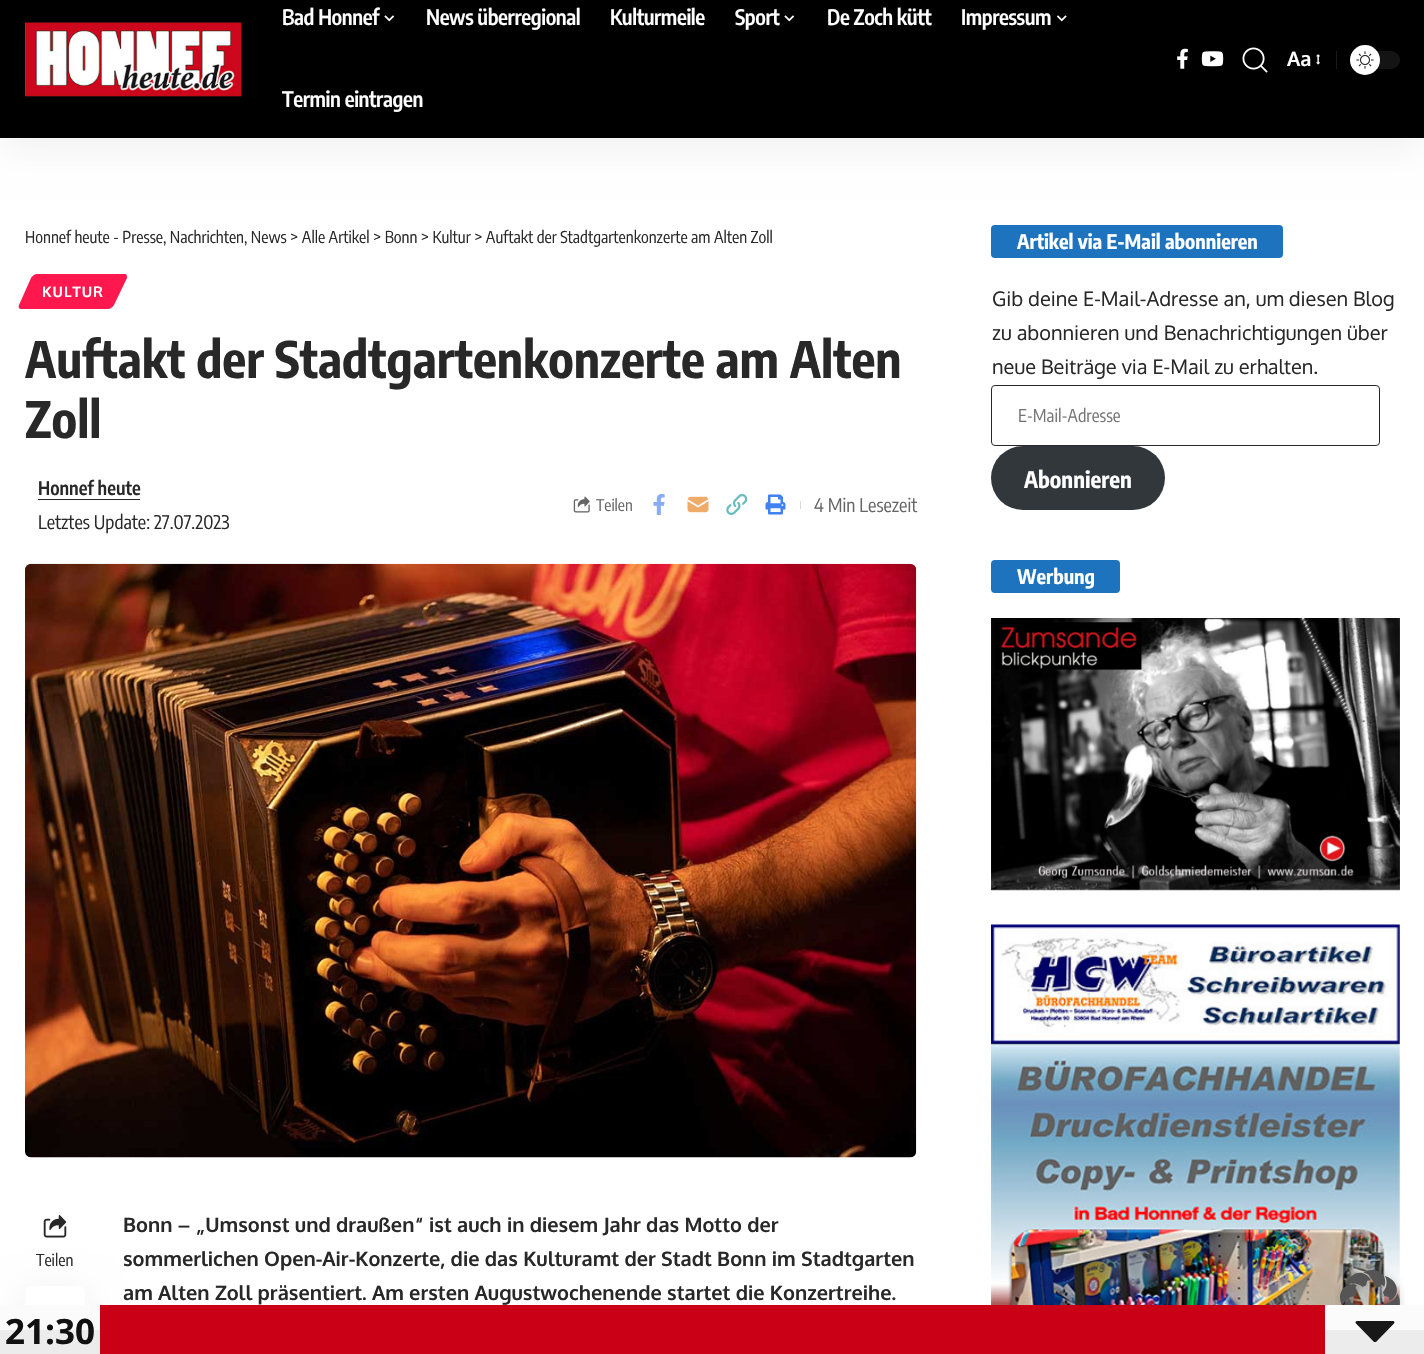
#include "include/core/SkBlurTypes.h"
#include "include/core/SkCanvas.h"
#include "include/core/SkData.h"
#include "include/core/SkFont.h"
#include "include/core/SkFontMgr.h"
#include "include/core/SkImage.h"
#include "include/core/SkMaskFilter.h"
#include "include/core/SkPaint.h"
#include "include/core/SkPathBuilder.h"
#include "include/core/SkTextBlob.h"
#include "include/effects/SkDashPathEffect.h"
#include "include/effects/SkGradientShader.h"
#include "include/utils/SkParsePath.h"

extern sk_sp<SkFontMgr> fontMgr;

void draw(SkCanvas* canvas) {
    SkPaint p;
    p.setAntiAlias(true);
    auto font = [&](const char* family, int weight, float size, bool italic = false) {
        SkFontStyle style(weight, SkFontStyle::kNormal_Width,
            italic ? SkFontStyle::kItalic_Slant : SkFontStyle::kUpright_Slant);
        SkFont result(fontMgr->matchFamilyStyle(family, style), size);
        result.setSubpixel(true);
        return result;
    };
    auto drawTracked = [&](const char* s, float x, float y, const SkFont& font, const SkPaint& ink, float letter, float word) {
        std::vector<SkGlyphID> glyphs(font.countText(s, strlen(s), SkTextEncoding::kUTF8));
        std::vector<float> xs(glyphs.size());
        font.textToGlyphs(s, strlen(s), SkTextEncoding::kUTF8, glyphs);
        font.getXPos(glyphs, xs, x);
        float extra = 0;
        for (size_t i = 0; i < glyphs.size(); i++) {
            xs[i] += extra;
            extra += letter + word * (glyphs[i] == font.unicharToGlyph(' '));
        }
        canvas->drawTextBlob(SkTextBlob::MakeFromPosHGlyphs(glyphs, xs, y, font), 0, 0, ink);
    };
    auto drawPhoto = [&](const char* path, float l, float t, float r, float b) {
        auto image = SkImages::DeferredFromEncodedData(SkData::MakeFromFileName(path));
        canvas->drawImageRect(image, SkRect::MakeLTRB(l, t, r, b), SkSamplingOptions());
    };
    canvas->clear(0xFFFFFFFF);
    p.setColor(0x12000000);
    p.setMaskFilter(SkMaskFilter::MakeBlur(kNormal_SkBlurStyle, 19));
    canvas->drawRect(SkRect::MakeLTRB(0, -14, 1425, 143), p);
    p.setMaskFilter(nullptr);
    p.setColor(0xFF000000);
    canvas->drawRect(SkRect::MakeLTRB(0, 0, 1424, 138), p);
    drawPhoto("media/1.png", 25, 22, 242, 97);
    auto font1 = font("Encode Sans Condensed", 600, 21.25f);
    p.setColor(0xFFFFFFFF);
    drawTracked("Bad Honnef", 282, 25, font1, p, -0.4f, 0);
    drawPhoto("media/2.png", 384, 15, 395, 22);
    {
        const struct { const char* s; float x, y; } items[] = {
            {"News überregional", 426, 25},
            {"Kulturmeile", 610, 25},
            {"Sport", 735, 25},
        };
        for (auto [s, x, y] : items) {
            drawTracked(s, x, y, font1, p, -0.4f, 0);
        }
    }
    drawPhoto("media/2.png", 784, 15, 795, 22);
    drawTracked("De Zoch kütt", 827, 25, font1, p, -0.4f, 0);
    drawTracked("Impressum", 961, 25, font1, p, -0.4f, 0);
    drawPhoto("media/3.png", 1056, 15, 1067, 22);
    drawTracked("Termin eintragen", 282, 107, font1, p, -0.4f, 0);
    drawPhoto("media/4.png", 1177, 48, 1188, 69);
    drawPhoto("media/5.png", 1201, 51, 1224, 67);
    drawPhoto("media/6.png", 1242, 47, 1268, 73);
    auto font2 = font("Oxygen", 700, 20);
    canvas->drawString("Aa", 1287, 66, font2, p);
    drawPhoto("media/7.png", 1316, 54, 1320, 65);
    p.setColor(0xFF1A1A1A);
    canvas->drawRect(SkRect::MakeLTRB(1336, 51, 1337, 69), p);
    p.setColor(0xFF141414);
    canvas->drawRoundRect(SkRect::MakeLTRB(1350, 51, 1400, 69), 9, 9, p);
    p.setColor(0xFFFFFFFF);
    canvas->drawCircle(1365, 60, 15, p);
    drawPhoto("media/8.png", 1356, 51, 1374, 69);
    auto font3 = font("Encode Sans Condensed", 400, 16.25f);
    p.setColor(0xFF282828);
    canvas->drawString("Honnef heute - Presse, Nachrichten, News > Alle Artikel > Bonn > Kultur > Auftakt der Stadtgartenkonzerte am Alten Zoll", 25, 243, font3, p);
    p.setColor(0xFFFF184E);
    canvas->drawPath(SkPathBuilder().moveTo(37, 274).lineTo(125, 274).cubicTo(127, 274, 127, 276, 127, 278).lineTo(114, 305).cubicTo(113, 307, 110, 309, 108, 309).lineTo(21, 309).cubicTo(19, 309, 18, 307, 19, 305).lineTo(31, 278).cubicTo(32, 276, 35, 274, 37, 274).close().detach(), p);
    auto font4 = font("Oxygen", 700, 14.5f);
    p.setColor(0xFFFFFFFF);
    drawTracked("KULTUR", 42, 297, font4, p, 1, 0);
    auto font5 = font("Encode Sans Condensed", 700, 50);
    p.setColor(0xFF282828);
    canvas->drawString("Auftakt der Stadtgartenkonzerte am Alten", 25, 378, font5, p);
    canvas->drawString("Zoll", 25, 438, font5, p);
    auto font6 = font("Encode Sans Condensed", 600, 18.75f);
    canvas->drawString("Honnef heute", 38, 495, font6, p);
    canvas->drawRect(SkRect::MakeLTRB(38, 499, 140, 500), p);
    auto font7 = font("Encode Sans Condensed", 400, 18.75f);
    canvas->drawString("Letztes Update: 27.07.2023", 38, 529, font7, p);
    drawPhoto("media/9.png", 573, 496, 590, 513);
    auto font8 = font("Encode Sans Condensed", 400, 16);
    p.setColor(0xFF666666);
    canvas->drawString("Teilen", 596, 511, font8, p);
    drawPhoto("media/10.png", 653, 494, 665, 515);
    drawPhoto("media/11.png", 687, 496, 709, 513);
    drawPhoto("media/12.png", 726, 494, 748, 515);
    drawPhoto("media/13.png", 765, 494, 786, 515);
    p.setColor(0xFFD9D9D9);
    canvas->drawRect(SkRect::MakeLTRB(800, 501, 801, 509), p);
    p.setColor(0xFF666666);
    canvas->drawString("4 Min Lesezeit", 814, 512, font7, p);
    drawPhoto("media/14.png", 25, 563, 917, 1158);
    drawPhoto("media/15.png", 43, 1215, 67, 1238);
    p.setColor(0x12000000);
    p.setMaskFilter(SkMaskFilter::MakeBlur(kNormal_SkBlurStyle, 19));
    canvas->drawRoundRect(SkRect::MakeLTRB(25, 1293, 85, 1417), 6, 6, p);
    p.setMaskFilter(nullptr);
    p.setColor(0xFFFFFFFF);
    canvas->drawRoundRect(SkRect::MakeLTRB(25, 1286, 85, 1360), 6, 6, p);
    p.setColor(0xFF282828);
    canvas->drawString("Teilen", 36, 1266, font3, p);
    {
        const struct { const char* s; float x, y; } items[] = {
            {"Bonn – „Umsonst und draußen“ ist auch in diesem Jahr das Motto der", 123, 1232},
            {"sommerlichen Open-Air-Konzerte, die das Kulturamt der Stadt Bonn im Stadtgarten", 123, 1266},
            {"am Alten Zoll präsentiert. Am ersten Augustwochenende startet die Konzertreihe.", 123, 1300},
        };
        for (auto [s, x, y] : items) {
            canvas->drawString(s, x, y, font2, p);
        }
    }
    p.setColor(0xFF1E73BE);
    canvas->drawRoundRect(SkRect::MakeLTRB(991, 225, 1283, 258), 4, 4, p);
    auto font9 = font("Encode Sans Condensed", 700, 20);
    p.setColor(0xFFFFFFFF);
    canvas->drawString("Artikel via E-Mail abonnieren", 1017, 249, font9, p);
    auto font10 = font("Oxygen", 400, 20);
    p.setColor(0xFF282828);
    {
        const struct { const char* s; float x, y; } items[] = {
            {"Gib deine E-Mail-Adresse an, um diesen Blog", 992, 306},
            {"zu abonnieren und Benachrichtigungen über", 992, 340},
            {"neue Beiträge via E-Mail zu erhalten.", 992, 374},
        };
        for (auto [s, x, y] : items) {
            canvas->drawString(s, x, y, font10, p);
        }
    }
    p.setStyle(SkPaint::kStroke_Style);
    p.setStrokeWidth(1);
    canvas->drawRoundRect(SkRect::MakeLTRB(991.5f, 385.5f, 1379.5f, 445.5f), 3.5f, 3.5f, p);
    auto font11 = font("Encode Sans Condensed", 400, 17.5f);
    p.setStyle(SkPaint::kFill_Style);
    p.setColor(0xFF757575);
    canvas->drawString("E-Mail-Adresse", 1018, 422, font11, p);
    p.setColor(0xFF32373C);
    canvas->drawRoundRect(SkRect::MakeLTRB(991, 446, 1165, 510), 32, 32, p);
    auto font12 = font("Encode Sans Condensed", 700, 22.5f);
    p.setColor(0xFFFFFFFF);
    canvas->drawString("Abonnieren", 1024, 488, font12, p);
    p.setColor(0xFF1E73BE);
    canvas->drawRoundRect(SkRect::MakeLTRB(991, 560, 1120, 593), 4, 4, p);
    p.setColor(0xFFFFFFFF);
    canvas->drawString("Werbung", 1017, 584, font9, p);
    drawPhoto("media/16.png", 991, 618, 1400, 891);
    drawPhoto("media/17.png", 991, 924, 1400, 1305);
    drawPhoto("media/18.png", 1335, 1265, 1405, 1305);
    p.setColor(0xFFFBFBFB);
    canvas->drawRect(SkRect::MakeLTRB(0, 1305, 91, 1330), p);
    p.setColor(0xFFECECEC);
    canvas->drawRect(SkRect::MakeLTRB(0, 1330, 100, 1354), p);
    auto font13 = font("Open Sans", 700, 35);
    p.setColor(0xFF111111);
    canvas->drawString("21:30", 5, 1344, font13, p);
    {
        const struct { float l, t, r, b; SkColor color; } items[] = {
            {100, 1305, 1325, 1354, 0xFFC90016},
            {1325, 1305, 1424, 1330, 0xFFFBFBFB},
            {1325, 1330, 1424, 1354, 0xFFECECEC},
        };
        for (auto [l, t, r, b, color] : items) {
            p.setColor(color);
            canvas->drawRect(SkRect::MakeLTRB(l, t, r, b), p);
        }
    }
    p.setColor(0xFF181818);
    canvas->drawPath(SkPathBuilder().moveTo(1376, 1342).lineTo(1394, 1323.5f).cubicTo(1395, 1322.5f, 1394.5f, 1321, 1393, 1321).lineTo(1357, 1321).cubicTo(1355.5f, 1321, 1355, 1322.5f, 1356, 1323.5f).lineTo(1374, 1342).cubicTo(1374.5f, 1342, 1375.5f, 1342, 1376, 1342).close().detach(), p);
}
